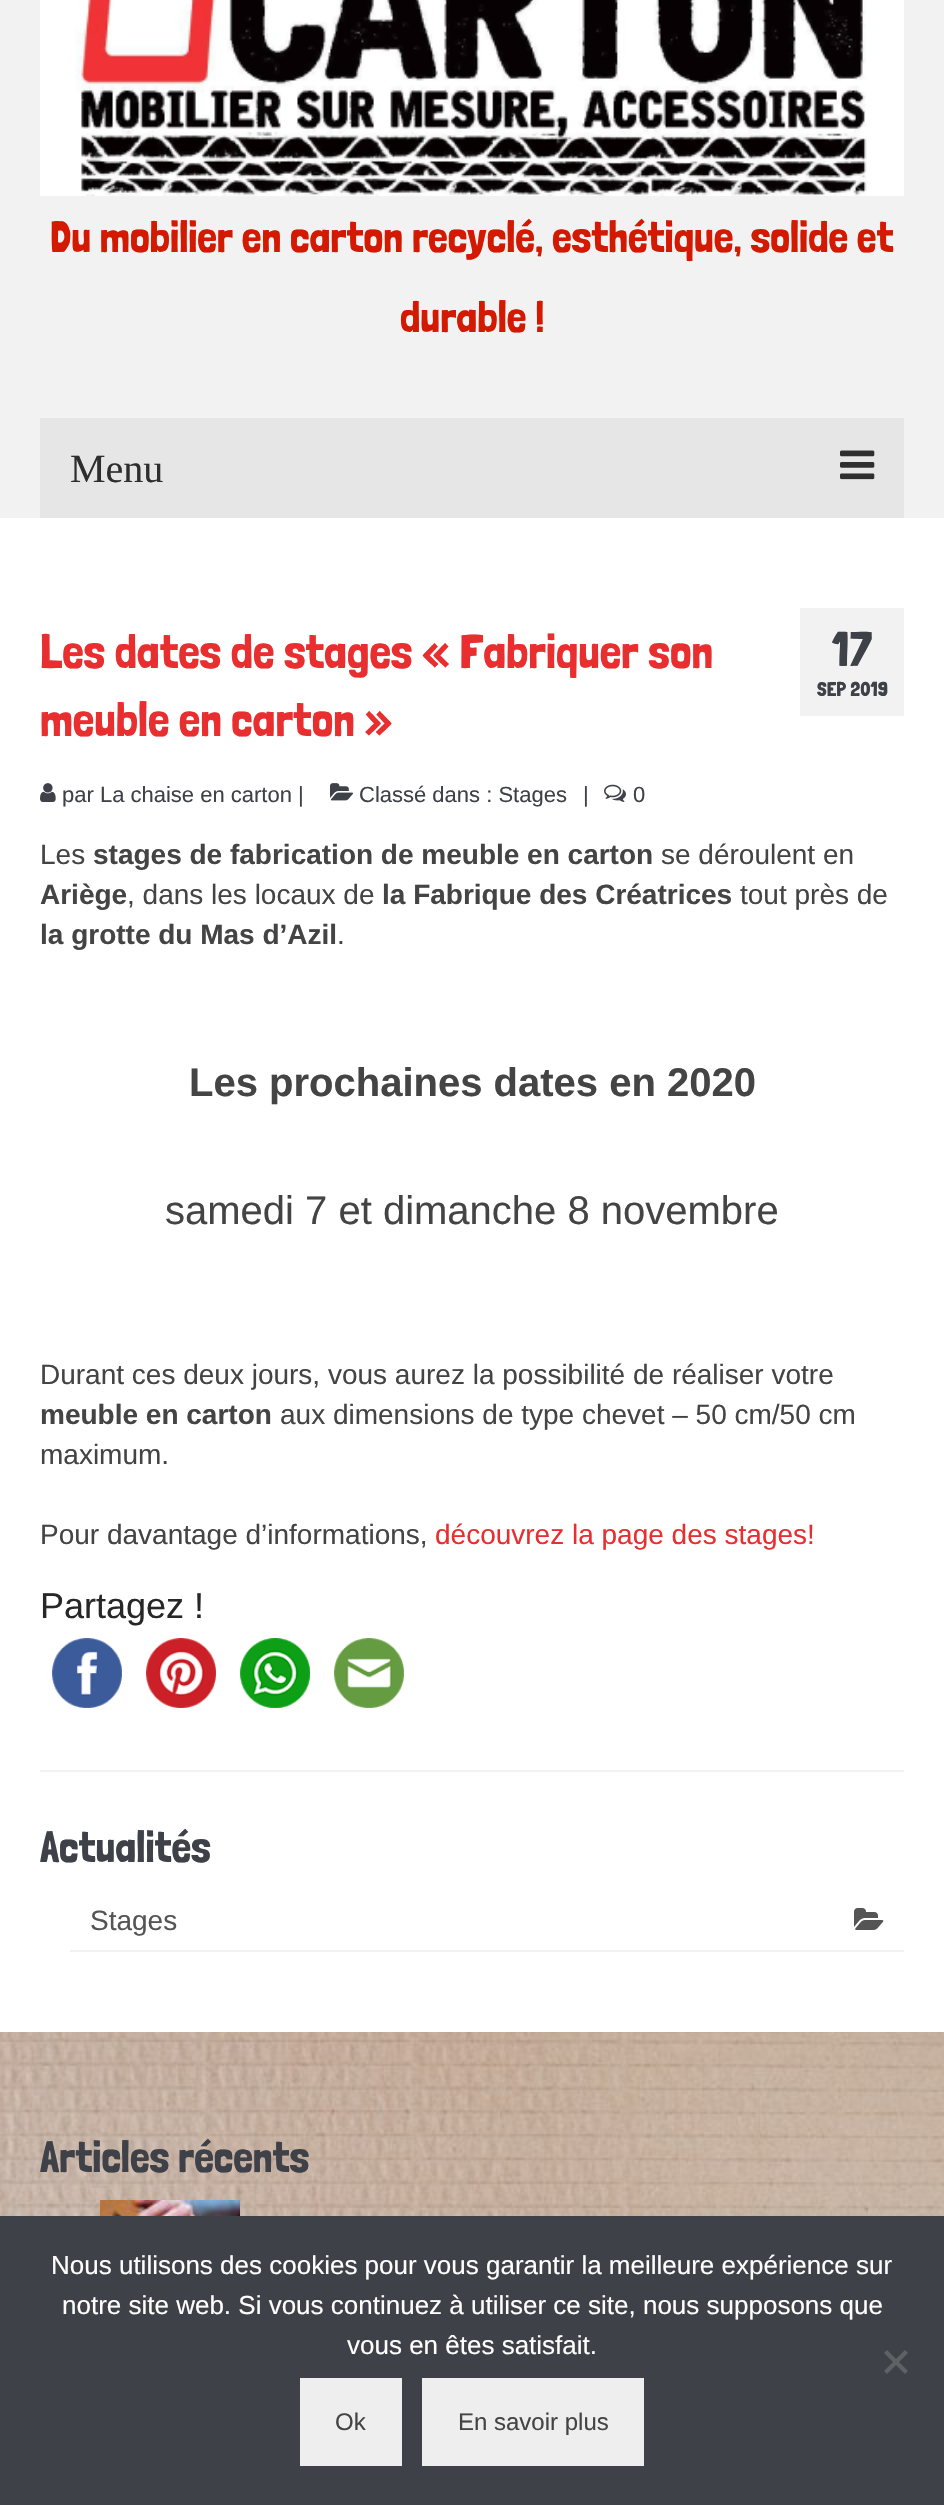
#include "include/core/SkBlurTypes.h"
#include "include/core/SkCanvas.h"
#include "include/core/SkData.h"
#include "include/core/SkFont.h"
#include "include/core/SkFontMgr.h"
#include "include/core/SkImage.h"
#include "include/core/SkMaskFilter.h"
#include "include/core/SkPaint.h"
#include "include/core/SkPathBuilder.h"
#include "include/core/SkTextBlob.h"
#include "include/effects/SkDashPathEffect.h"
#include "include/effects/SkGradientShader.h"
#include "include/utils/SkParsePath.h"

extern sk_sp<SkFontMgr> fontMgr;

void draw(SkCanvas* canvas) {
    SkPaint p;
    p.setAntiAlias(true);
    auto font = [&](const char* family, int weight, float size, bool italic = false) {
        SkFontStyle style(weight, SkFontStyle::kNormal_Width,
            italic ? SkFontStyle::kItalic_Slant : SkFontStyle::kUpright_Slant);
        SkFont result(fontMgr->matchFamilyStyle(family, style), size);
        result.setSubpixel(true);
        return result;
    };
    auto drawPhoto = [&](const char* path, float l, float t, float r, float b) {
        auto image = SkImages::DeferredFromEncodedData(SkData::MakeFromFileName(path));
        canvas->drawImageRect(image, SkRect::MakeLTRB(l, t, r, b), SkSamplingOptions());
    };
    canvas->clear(0xFFFFFFFF);
    p.setColor(0xFFF2F2F2);
    canvas->drawRect(SkRect::MakeLTRB(0, 0, 944, 518), p);
    drawPhoto("media/1.png", 40, 0, 904, 196);
    auto font1 = font("Londrina Solid", 400, 44);
    p.setColor(0xFFD31900);
    canvas->drawString("Du mobilier en carton recyclé, esthétique, solide et", 50, 252, font1, p);
    canvas->drawString("durable !", 400, 332, font1, p);
    p.setColor(0xFFE6E6E6);
    canvas->drawRect(SkRect::MakeLTRB(40, 418, 904, 518), p);
    auto font2 = font("Liberation Serif", 400, 40);
    p.setColor(0xFF2E2E2E);
    canvas->drawString("Menu", 70, 482, font2, p);
    drawPhoto("media/2.png", 840, 450, 875, 480);
    auto font3 = font("Londrina Solid", 400, 48);
    p.setColor(0xFFE92E2F);
    canvas->drawString("Les dates de stages « Fabriquer son", 40, 668, font3, p);
    canvas->drawString("meuble en carton »", 40, 736, font3, p);
    drawPhoto("media/3.png", 40, 783, 56, 802);
    auto font4 = font("Liberation Sans", 400, 22);
    p.setColor(0xFF3E4147);
    canvas->drawString("par La chaise en carton |", 62, 802, font4, p);
    drawPhoto("media/4.png", 330, 783, 353, 801);
    canvas->drawString("Classé dans : Stages", 359, 802, font4, p);
    canvas->drawString("|", 583, 802, font4, p);
    drawPhoto("media/5.png", 604, 784, 626, 802);
    canvas->drawString("0", 633, 802, font4, p);
    p.setColor(0xFFF2F2F2);
    canvas->drawRect(SkRect::MakeLTRB(800, 608, 904, 716), p);
    p.setColor(0xFF3E4147);
    canvas->drawString("17", 832, 666, font3, p);
    auto font5 = font("Londrina Solid", 400, 20);
    canvas->drawString("SEP 2019", 817, 696, font5, p);
    auto font6 = font("Liberation Sans", 400, 28);
    p.setColor(0xFF444444);
    canvas->drawString("Les", 40, 864, font6, p);
    auto font7 = font("Liberation Sans", 700, 28);
    canvas->drawString("stages de fabrication de meuble en carton", 93, 864, font7, p);
    canvas->drawString("se déroulent en", 661, 864, font6, p);
    canvas->drawString("Ariège", 40, 904, font7, p);
    canvas->drawString(", dans les locaux de", 127, 904, font6, p);
    canvas->drawString("la Fabrique des Créatrices", 382, 904, font7, p);
    canvas->drawString("tout près de", 740, 904, font6, p);
    canvas->drawString("la grotte du Mas d’Azil", 40, 944, font7, p);
    canvas->drawString(".", 337, 944, font6, p);
    auto font8 = font("Liberation Sans", 700, 40);
    canvas->drawString("Les prochaines dates en 2020", 189, 1096, font8, p);
    auto font9 = font("Liberation Sans", 400, 40);
    canvas->drawString("samedi 7 et dimanche 8 novembre", 165, 1224, font9, p);
    canvas->drawString("Durant ces deux jours, vous aurez la possibilité de réaliser votre", 40, 1384, font6, p);
    canvas->drawString("meuble en carton", 40, 1424, font7, p);
    {
        const struct { const char* s; float x, y; } items[] = {
            {"aux dimensions de type chevet – 50 cm/50 cm", 280, 1424},
            {"maximum.", 40, 1464},
            {"Pour davantage d’informations,", 40, 1544},
        };
        for (auto [s, x, y] : items) {
            canvas->drawString(s, x, y, font6, p);
        }
    }
    p.setColor(0xFFE92E2F);
    canvas->drawString("découvrez la page des stages!", 435, 1544, font6, p);
    auto font10 = font("Liberation Sans", 400, 36);
    p.setColor(0xFF272727);
    canvas->drawString("Partagez !", 40, 1618, font10, p);
    drawPhoto("media/6.png", 52, 1638, 122, 1708);
    drawPhoto("media/7.png", 146, 1638, 216, 1708);
    drawPhoto("media/8.png", 240, 1638, 310, 1708);
    drawPhoto("media/9.png", 334, 1638, 404, 1708);
    p.setColor(0xFFF2F2F2);
    canvas->drawRect(SkRect::MakeLTRB(40, 1770, 904, 1772), p);
    p.setColor(0xFF3E4147);
    canvas->drawString("Actualités", 40, 1862, font1, p);
    p.setColor(0xFFF2F2F2);
    canvas->drawRect(SkRect::MakeLTRB(70, 1950, 904, 1952), p);
    p.setColor(0xFF555555);
    canvas->drawString("Stages", 90, 1930, font6, p);
    drawPhoto("media/10.png", 854, 1908, 884, 1930);
    drawPhoto("media/11.png", 0, 2032, 944, 2216);
    p.setColor(0xFF3E4147);
    canvas->drawString("Articles récents", 40, 2172, font1, p);
    drawPhoto("media/12.png", 100, 2200, 240, 2216);
    canvas->drawRect(SkRect::MakeLTRB(0, 2216, 944, 2505), p);
    auto font11 = font("Liberation Sans", 400, 26);
    p.setColor(0xFFFFFFFF);
    {
        const struct { const char* s; float x, y; } items[] = {
            {"Nous utilisons des cookies pour vous garantir la meilleure expérience sur", 51, 2274},
            {"notre site web. Si vous continuez à utiliser ce site, nous supposons que", 62, 2314},
            {"vous en êtes satisfait.", 347, 2354},
        };
        for (auto [s, x, y] : items) {
            canvas->drawString(s, x, y, font11, p);
        }
    }
    p.setColor(0xFF5F6164);
    canvas->drawPath(SkPathBuilder().moveTo(905, 2350).lineTo(908, 2353).lineTo(887, 2374).lineTo(884, 2371).close().detach(), p);
    canvas->drawPath(SkPathBuilder().moveTo(884, 2353).lineTo(887, 2350).lineTo(908, 2371).lineTo(905, 2374).close().detach(), p);
    p.setColor(0xFFEEEEEE);
    canvas->drawRect(SkRect::MakeLTRB(300, 2378, 402, 2466), p);
    auto font12 = font("Liberation Sans", 400, 24);
    p.setColor(0xFF444444);
    canvas->drawString("Ok", 335, 2430, font12, p);
    p.setColor(0xFFEEEEEE);
    canvas->drawRect(SkRect::MakeLTRB(422, 2378, 644, 2466), p);
    p.setColor(0xFF444444);
    canvas->drawString("En savoir plus", 458, 2430, font12, p);
}
